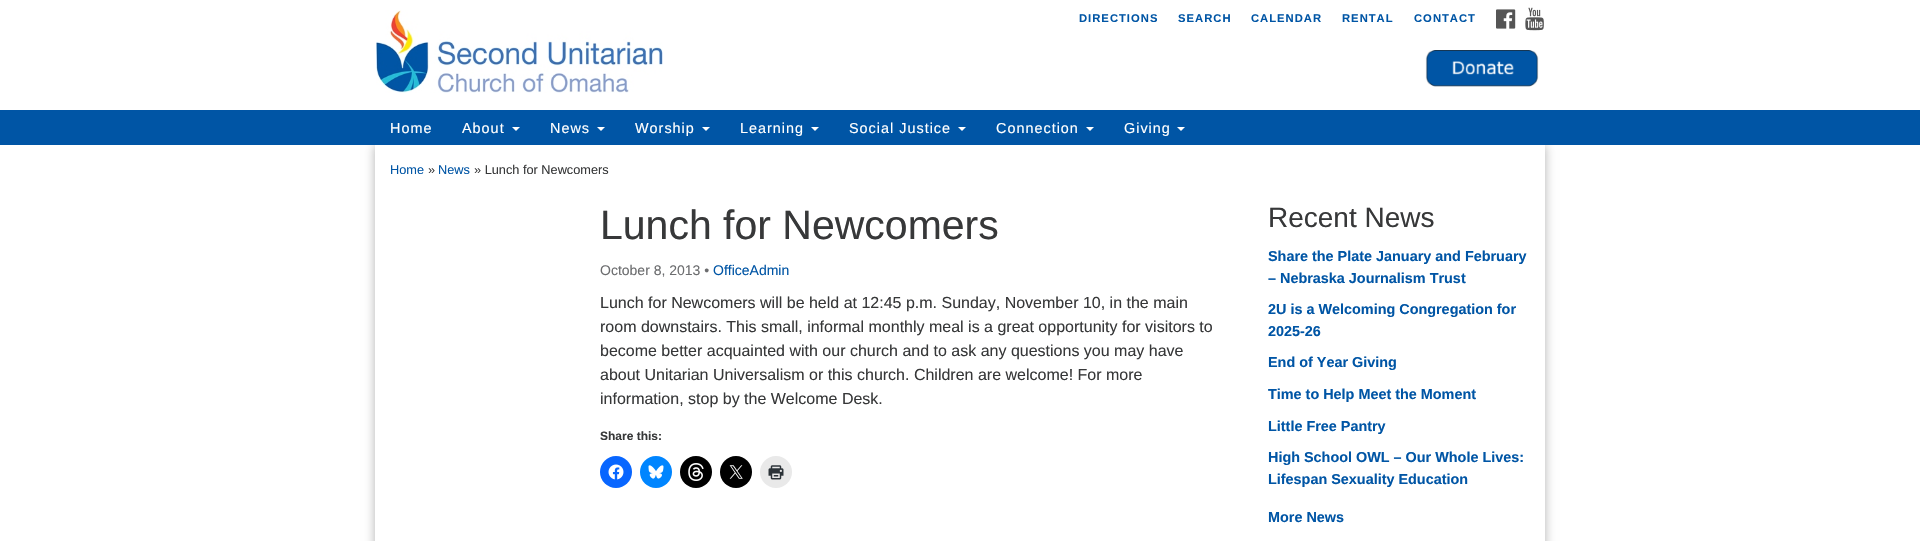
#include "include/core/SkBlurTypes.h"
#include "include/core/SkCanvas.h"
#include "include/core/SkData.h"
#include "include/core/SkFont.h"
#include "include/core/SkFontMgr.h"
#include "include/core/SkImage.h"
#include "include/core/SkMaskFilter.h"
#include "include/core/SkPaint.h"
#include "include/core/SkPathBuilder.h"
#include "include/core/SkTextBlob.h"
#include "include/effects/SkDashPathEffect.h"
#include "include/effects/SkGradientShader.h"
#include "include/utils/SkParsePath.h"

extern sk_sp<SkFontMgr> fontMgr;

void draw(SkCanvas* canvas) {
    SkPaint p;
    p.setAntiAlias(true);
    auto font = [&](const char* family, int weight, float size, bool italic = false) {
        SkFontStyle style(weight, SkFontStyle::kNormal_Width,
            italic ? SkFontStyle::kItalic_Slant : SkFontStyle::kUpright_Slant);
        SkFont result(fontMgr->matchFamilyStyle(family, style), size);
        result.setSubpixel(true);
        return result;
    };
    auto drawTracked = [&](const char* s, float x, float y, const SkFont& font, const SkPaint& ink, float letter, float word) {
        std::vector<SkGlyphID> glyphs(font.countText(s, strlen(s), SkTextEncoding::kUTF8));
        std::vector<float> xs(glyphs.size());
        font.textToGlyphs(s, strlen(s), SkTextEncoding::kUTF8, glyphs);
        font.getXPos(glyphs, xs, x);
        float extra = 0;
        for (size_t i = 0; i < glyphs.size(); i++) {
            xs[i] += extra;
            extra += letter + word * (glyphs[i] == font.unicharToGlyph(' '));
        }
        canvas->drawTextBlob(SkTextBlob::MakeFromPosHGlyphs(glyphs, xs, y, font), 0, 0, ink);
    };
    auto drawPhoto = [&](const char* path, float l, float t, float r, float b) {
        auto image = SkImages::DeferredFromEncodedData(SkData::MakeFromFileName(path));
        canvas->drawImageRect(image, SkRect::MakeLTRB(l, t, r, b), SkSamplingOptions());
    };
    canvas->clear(0xFFFFFFFF);
    drawPhoto("media/1.png", 376, 10, 663, 93);
    auto font1 = font("Liberation Sans", 700, 11.25f);
    p.setColor(0xFF0055A5);
    {
        const struct { const char* s; float x, y; } items[] = {
            {"DIRECTIONS", 1079, 22},
            {"SEARCH", 1178, 22},
            {"CALENDAR", 1251, 22},
            {"RENTAL", 1342, 22},
            {"CONTACT", 1414, 22},
        };
        for (auto [s, x, y] : items) {
            drawTracked(s, x, y, font1, p, 1, 0);
        }
    }
    drawPhoto("media/2.png", 1496, 9, 1516, 29);
    drawPhoto("media/3.png", 1525, 7, 1544, 31);
    drawPhoto("media/4.png", 1425, 50, 1539, 87);
    canvas->save();
    canvas->clipPath(SkPathBuilder(SkPathFillType::kEvenOdd).moveTo(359, 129).lineTo(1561, 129).lineTo(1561, 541).lineTo(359, 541).close().moveTo(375, 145).lineTo(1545, 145).lineTo(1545, 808).lineTo(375, 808).close().detach(), true);
    p.setColor(0x4D000000);
    p.setMaskFilter(SkMaskFilter::MakeBlur(kNormal_SkBlurStyle, 5));
    canvas->drawRect(SkRect::MakeLTRB(375, 145, 1545, 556), p);
    p.setMaskFilter(nullptr);
    canvas->restore();
    p.setColor(0xFF0055A5);
    canvas->drawRect(SkRect::MakeLTRB(0, 110, 1920, 145), p);
    auto font2 = font("Liberation Sans", 400, 14.4f);
    p.setColor(0xFFFFFFFF);
    drawTracked("Home", 390, 133, font2, p, 1, 0);
    drawTracked("About", 462, 133, font2, p, 1, 0);
    canvas->drawPath(SkPathBuilder().moveTo(512, 127).lineTo(520, 127).lineTo(516, 131).close().detach(), p);
    drawTracked("News", 550, 133, font2, p, 1, 0);
    canvas->drawPath(SkPathBuilder().moveTo(597, 127).lineTo(605, 127).lineTo(601, 131).close().detach(), p);
    drawTracked("Worship", 635, 133, font2, p, 1, 0);
    canvas->drawPath(SkPathBuilder().moveTo(702, 127).lineTo(710, 127).lineTo(706, 131).close().detach(), p);
    drawTracked("Learning", 740, 133, font2, p, 1, 0);
    canvas->drawPath(SkPathBuilder().moveTo(811, 127).lineTo(819, 127).lineTo(815, 131).close().detach(), p);
    drawTracked("Social Justice", 849, 133, font2, p, 1, 0);
    canvas->drawPath(SkPathBuilder().moveTo(958, 127).lineTo(966, 127).lineTo(962, 131).close().detach(), p);
    drawTracked("Connection", 996, 133, font2, p, 1, 0);
    canvas->drawPath(SkPathBuilder().moveTo(1086, 127).lineTo(1094, 127).lineTo(1090, 131).close().detach(), p);
    drawTracked("Giving", 1124, 133, font2, p, 1, 0);
    canvas->drawPath(SkPathBuilder().moveTo(1177, 127).lineTo(1185, 127).lineTo(1181, 131).close().detach(), p);
    auto font3 = font("Liberation Sans", 400, 12.75f);
    p.setColor(0xFF0055A5);
    canvas->drawString("Home", 390, 174, font3, p);
    p.setColor(0xFF373839);
    canvas->drawString("»", 428, 174, font3, p);
    p.setColor(0xFF0055A5);
    canvas->drawString("News", 438, 174, font3, p);
    p.setColor(0xFF373839);
    canvas->drawString("» Lunch for Newcomers", 474, 174, font3, p);
    auto font4 = font("Liberation Sans", 400, 41);
    canvas->drawString("Lunch for Newcomers", 600, 239, font4, p);
    auto font5 = font("Liberation Sans", 400, 14);
    p.setColor(0xFF6C6D6F);
    canvas->drawString("October 8, 2013 •", 600, 275, font5, p);
    p.setColor(0xFF0055A5);
    canvas->drawString("OfficeAdmin", 713, 275, font5, p);
    auto font6 = font("Liberation Sans", 400, 16);
    p.setColor(0xFF373839);
    {
        const struct { const char* s; float x, y; } items[] = {
            {"Lunch for Newcomers will be held at 12:45 p.m. Sunday, November 10, in the main", 600, 308},
            {"room downstairs. This small, informal monthly meal is a great opportunity for visitors to", 600, 332},
            {"become better acquainted with our church and to ask any questions you may have", 600, 356},
            {"about Unitarian Universalism or this church. Children are welcome! For more", 600, 380},
            {"information, stop by the Welcome Desk.", 600, 404},
        };
        for (auto [s, x, y] : items) {
            canvas->drawString(s, x, y, font6, p);
        }
    }
    auto font7 = font("Liberation Sans", 700, 12);
    canvas->drawString("Share this:", 600, 440, font7, p);
    p.setColor(0xFF0866FF);
    canvas->drawCircle(616, 472, 16, p);
    drawPhoto("media/5.png", 608, 464, 624, 480);
    p.setColor(0xFF0085FF);
    canvas->drawCircle(656, 472, 16, p);
    drawPhoto("media/6.png", 648, 465, 664, 479);
    p.setColor(0xFF000000);
    canvas->drawCircle(696, 472, 16, p);
    drawPhoto("media/7.png", 688, 463, 704, 481);
    canvas->drawCircle(736, 472, 16, p);
    drawPhoto("media/8.png", 729, 465, 743, 479);
    p.setColor(0xFFE9E9E9);
    canvas->drawCircle(776, 472, 16, p);
    drawPhoto("media/9.png", 768, 465, 784, 480);
    auto font8 = font("Liberation Sans", 400, 28);
    p.setColor(0xFF373839);
    canvas->drawString("Recent News", 1268, 227, font8, p);
    auto font9 = font("Liberation Sans", 700, 14.4f);
    p.setColor(0xFF0055A5);
    {
        const struct { const char* s; float x, y; } items[] = {
            {"Share the Plate January and February", 1268, 261},
            {"– Nebraska Journalism Trust", 1268, 283},
            {"2U is a Welcoming Congregation for", 1268, 314},
            {"2025-26", 1268, 336},
            {"End of Year Giving", 1268, 367},
            {"Time to Help Meet the Moment", 1268, 399},
            {"Little Free Pantry", 1268, 431},
            {"High School OWL – Our Whole Lives:", 1268, 462},
            {"Lifespan Sexuality Education", 1268, 484},
            {"More News", 1268, 522},
        };
        for (auto [s, x, y] : items) {
            canvas->drawString(s, x, y, font9, p);
        }
    }
}
